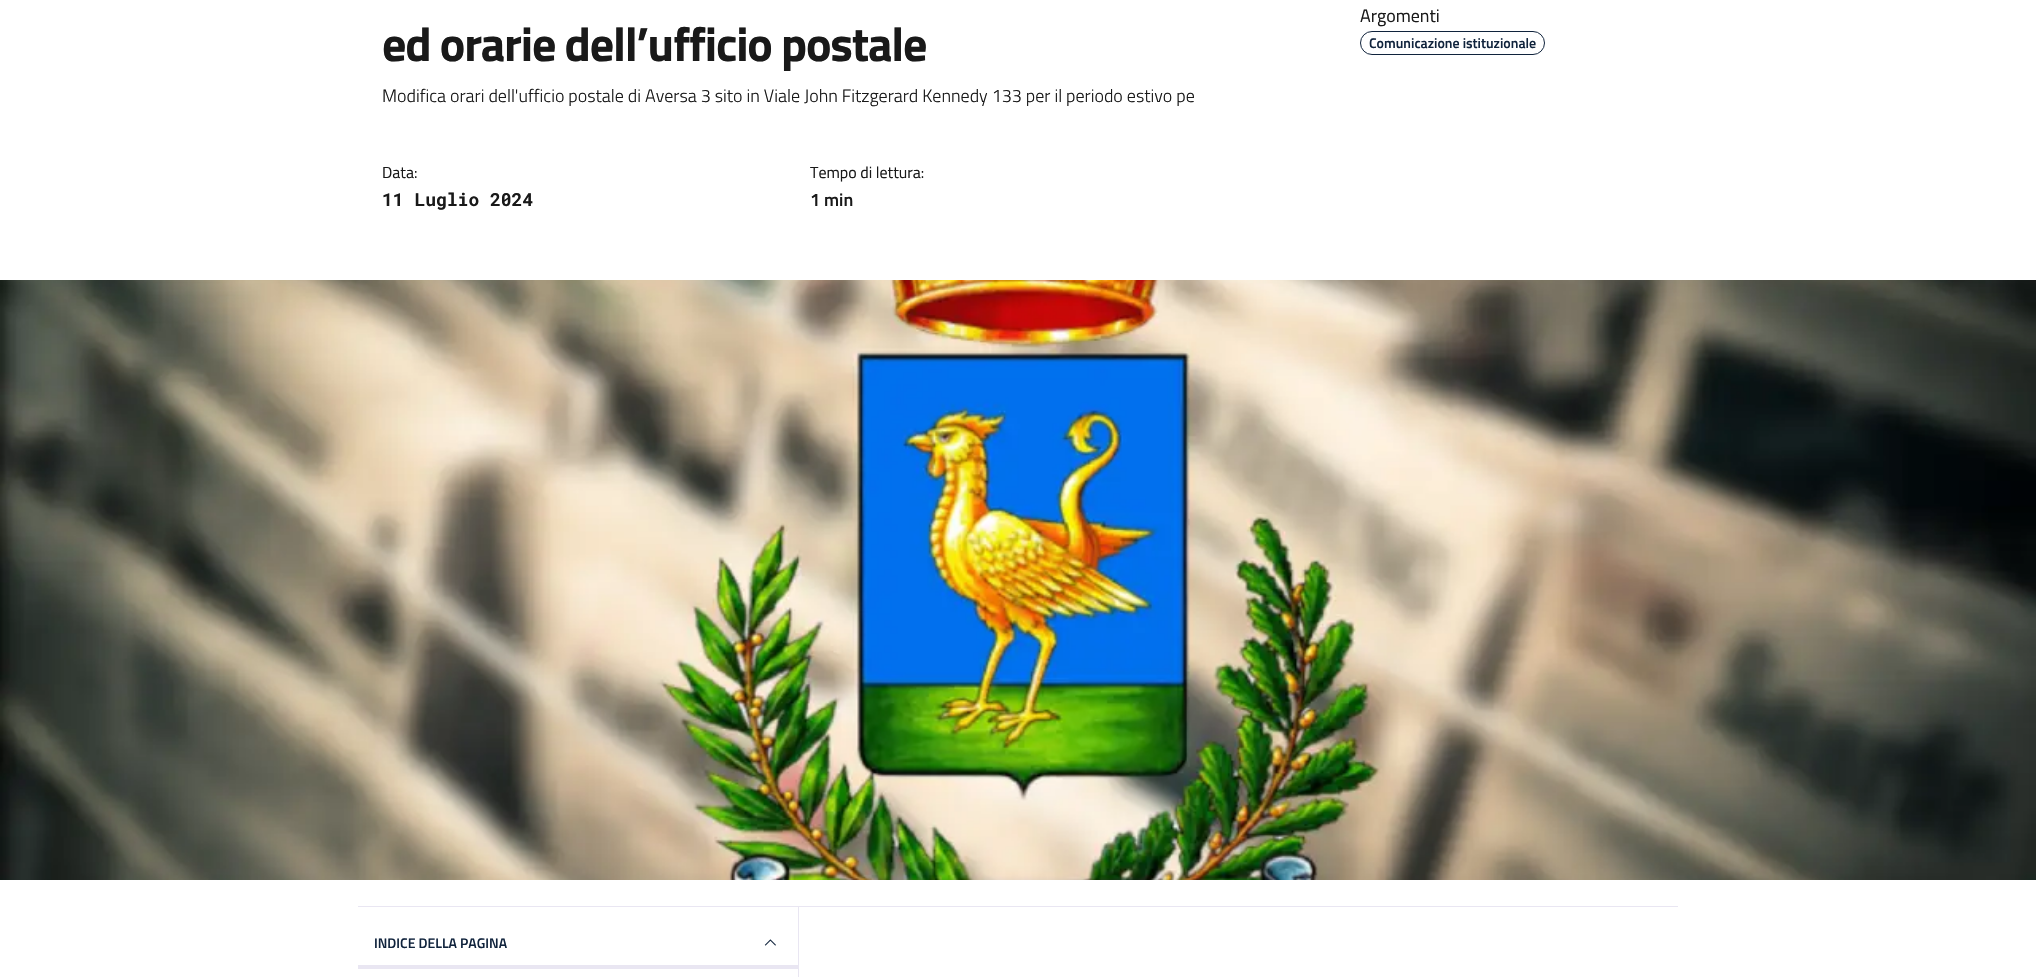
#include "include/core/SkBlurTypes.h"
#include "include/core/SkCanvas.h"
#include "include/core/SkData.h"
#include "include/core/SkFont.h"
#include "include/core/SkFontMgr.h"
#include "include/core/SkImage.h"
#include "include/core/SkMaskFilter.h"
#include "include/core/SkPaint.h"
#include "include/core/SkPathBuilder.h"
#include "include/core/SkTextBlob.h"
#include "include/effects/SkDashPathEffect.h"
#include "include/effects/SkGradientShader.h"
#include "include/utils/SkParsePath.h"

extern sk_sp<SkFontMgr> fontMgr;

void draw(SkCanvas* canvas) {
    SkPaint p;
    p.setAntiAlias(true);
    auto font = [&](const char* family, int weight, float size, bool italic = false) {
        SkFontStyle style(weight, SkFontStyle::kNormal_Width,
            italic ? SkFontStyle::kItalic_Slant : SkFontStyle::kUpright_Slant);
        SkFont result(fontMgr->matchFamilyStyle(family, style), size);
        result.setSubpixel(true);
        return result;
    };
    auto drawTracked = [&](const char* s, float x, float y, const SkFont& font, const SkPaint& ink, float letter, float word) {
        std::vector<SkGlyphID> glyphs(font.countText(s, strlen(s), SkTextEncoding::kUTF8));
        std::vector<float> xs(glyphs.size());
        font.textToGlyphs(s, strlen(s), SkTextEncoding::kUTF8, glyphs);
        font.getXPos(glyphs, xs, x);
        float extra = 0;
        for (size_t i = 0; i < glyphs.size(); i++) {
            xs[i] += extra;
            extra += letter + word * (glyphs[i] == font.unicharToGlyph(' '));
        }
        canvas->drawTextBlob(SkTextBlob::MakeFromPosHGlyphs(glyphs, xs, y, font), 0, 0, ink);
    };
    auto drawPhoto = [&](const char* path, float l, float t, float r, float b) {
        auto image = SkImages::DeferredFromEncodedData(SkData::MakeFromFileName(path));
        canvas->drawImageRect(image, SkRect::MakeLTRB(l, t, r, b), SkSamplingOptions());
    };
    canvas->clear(0xFFFFFFFF);
    auto font1 = font("Titillium Web", 700, 48);
    p.setColor(0xFF191919);
    drawTracked("ed orarie dell’ufficio postale", 382, 61, font1, p, -1.2f, 0);
    auto font2 = font("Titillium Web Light", 300, 18);
    canvas->drawString("Modifica orari dell'ufficio postale di Aversa 3 sito in Viale John Fitzgerard Kennedy 133 per il periodo estivo pe", 382, 102, font2, p);
    auto font3 = font("Titillium Web", 400, 16);
    canvas->drawString("Data:", 382, 178, font3, p);
    auto font4 = font("Roboto Mono", 700, 18);
    canvas->drawString("11 Luglio 2024", 382, 206, font4, p);
    canvas->drawString("Tempo di lettura:", 810, 178, font3, p);
    auto font5 = font("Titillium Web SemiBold", 600, 18);
    canvas->drawString("1 min", 810, 206, font5, p);
    auto font6 = font("Titillium Web", 400, 18);
    canvas->drawString("Argomenti", 1360, 22, font6, p);
    p.setStyle(SkPaint::kStroke_Style);
    p.setStrokeWidth(1);
    p.setColor(0xFF10233C);
    canvas->drawRoundRect(SkRect::MakeLTRB(1360.5f, 31.5f, 1544.5f, 54.5f), 11.5f, 11.5f, p);
    auto font7 = font("Titillium Web SemiBold", 600, 14);
    p.setStyle(SkPaint::kFill_Style);
    canvas->drawString("Comunicazione istituzionale", 1369, 48, font7, p);
    drawPhoto("media/1.png", 0, 280, 2036, 880);
    p.setColor(0xFFE9E6F2);
    canvas->drawRect(SkRect::MakeLTRB(358, 906, 1678, 907), p);
    p.setColor(0xFF10233C);
    canvas->drawString("INDICE DELLA PAGINA", 374, 948, font7, p);
    drawPhoto("media/2.png", 764, 939, 776, 946);
    p.setColor(0xFFE9E6F2);
    canvas->drawRect(SkRect::MakeLTRB(358, 965, 798, 969), p);
    canvas->drawRect(SkRect::MakeLTRB(798, 907, 799, 977), p);
}
